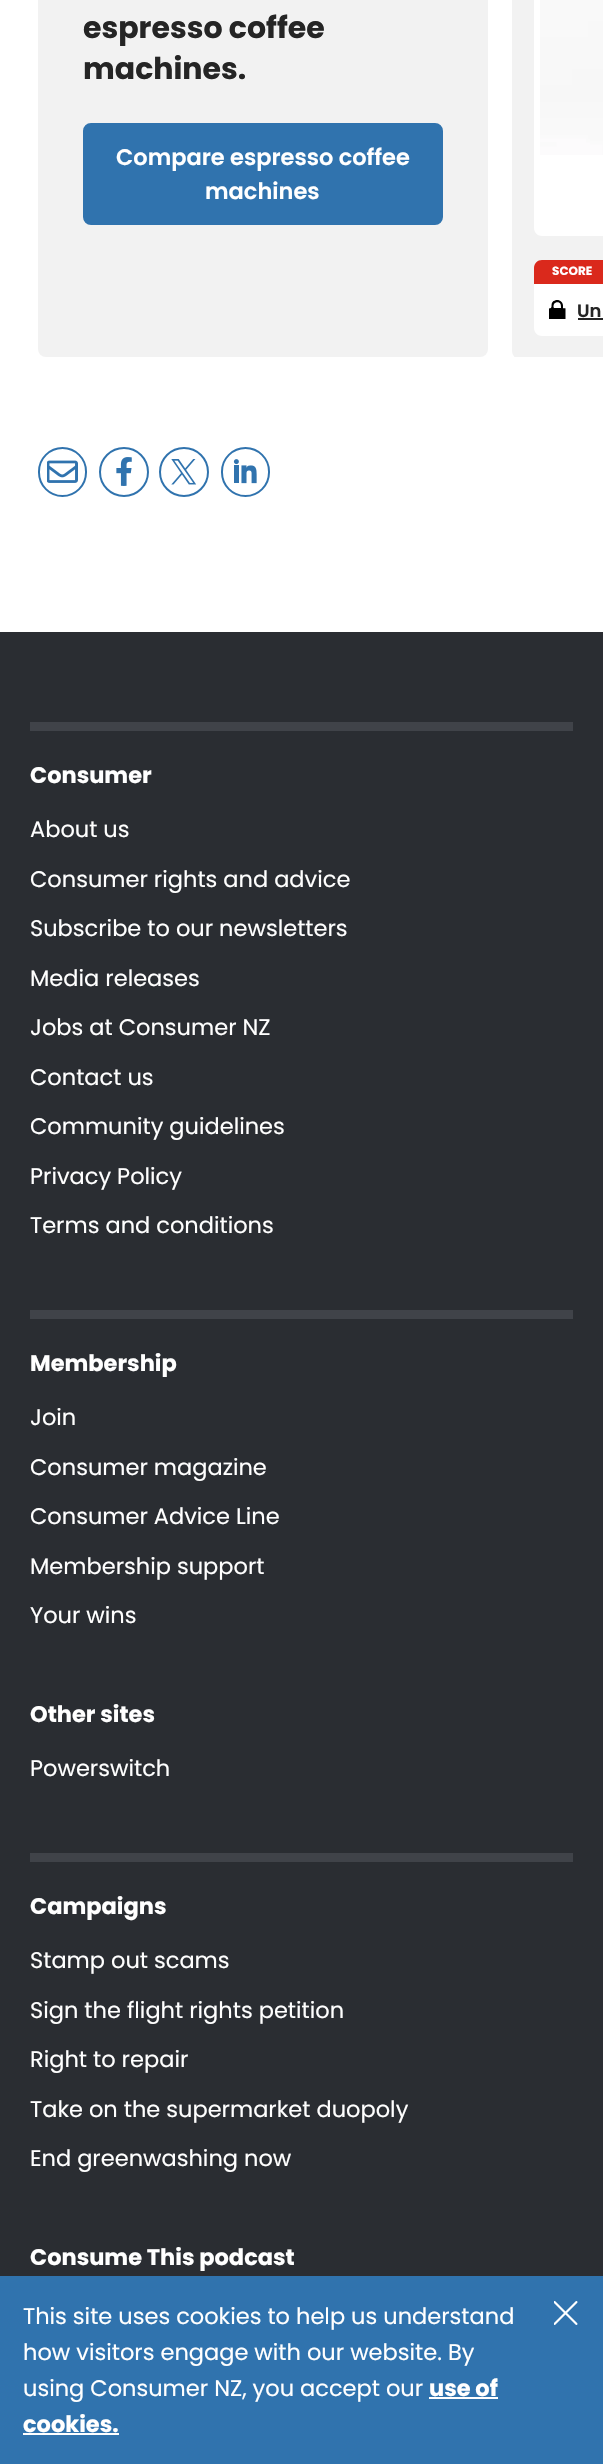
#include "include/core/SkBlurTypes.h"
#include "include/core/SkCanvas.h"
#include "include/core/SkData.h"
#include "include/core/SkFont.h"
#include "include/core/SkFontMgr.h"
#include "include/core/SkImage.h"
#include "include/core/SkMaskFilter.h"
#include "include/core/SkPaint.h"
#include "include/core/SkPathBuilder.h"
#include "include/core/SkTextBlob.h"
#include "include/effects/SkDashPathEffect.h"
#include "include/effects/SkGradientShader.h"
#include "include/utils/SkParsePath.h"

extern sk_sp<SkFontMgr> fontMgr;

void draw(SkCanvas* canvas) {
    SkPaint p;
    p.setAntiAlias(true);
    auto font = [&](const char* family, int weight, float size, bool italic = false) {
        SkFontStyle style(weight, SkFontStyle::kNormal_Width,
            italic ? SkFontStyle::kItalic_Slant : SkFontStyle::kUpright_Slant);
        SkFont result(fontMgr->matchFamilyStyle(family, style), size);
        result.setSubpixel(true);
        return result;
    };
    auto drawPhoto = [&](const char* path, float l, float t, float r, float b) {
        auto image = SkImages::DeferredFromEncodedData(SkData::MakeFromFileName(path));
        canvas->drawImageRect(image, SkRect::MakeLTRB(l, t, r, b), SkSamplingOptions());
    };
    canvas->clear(0xFFFFFFFF);
    p.setColor(0xFFF2F2F2);
    canvas->drawRoundRect(SkRect::MakeLTRB(38, -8, 488, 357), 8, 8, p);
    auto font1 = font("Poppins", 700, 30);
    p.setColor(0xFF252525);
    canvas->drawString("espresso coffee", 83, 38, font1, p);
    canvas->drawString("machines.", 83, 79, font1, p);
    p.setColor(0xFF3073AE);
    canvas->drawRoundRect(SkRect::MakeLTRB(84, 124, 442, 224), 7, 7, p);
    p.setStyle(SkPaint::kStroke_Style);
    p.setStrokeWidth(2);
    canvas->drawRoundRect(SkRect::MakeLTRB(84, 124, 442, 224), 7, 7, p);
    auto font2 = font("Poppins", 600, 22.5f);
    p.setStyle(SkPaint::kFill_Style);
    p.setColor(0xFFFFFFFF);
    canvas->drawString("Compare espresso coffee", 116, 165, font2, p);
    canvas->drawString("machines", 205, 199, font2, p);
    canvas->save();
    canvas->clipRect(SkRect::MakeLTRB(0, 0, 603, 357));
    p.setColor(0xFFF2F2F2);
    canvas->drawRoundRect(SkRect::MakeLTRB(512, -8, 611, 359), 8, 8, p);
    canvas->restore();
    p.setColor(0xFFFFFFFF);
    canvas->drawPath(SkPathBuilder().moveTo(542, -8).lineTo(603, -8).lineTo(603, 236).lineTo(542, 236).cubicTo(537.5f, 236, 534, 232.5f, 534, 228).lineTo(534, 0).cubicTo(534, -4.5f, 537.5f, -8, 542, -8).close().detach(), p);
    drawPhoto("media/1.png", 540, 0, 603, 155);
    p.setColor(0xFFDA291C);
    canvas->drawPath(SkPathBuilder().moveTo(542, 260).lineTo(603, 260).lineTo(603, 284).lineTo(534, 284).lineTo(534, 268).cubicTo(534, 263.5f, 537.5f, 260, 542, 260).close().detach(), p);
    auto font3 = font("Poppins", 700, 12);
    p.setColor(0xFFFFFFFF);
    canvas->drawString("SCORE", 552, 275, font3, p);
    canvas->drawPath(SkPathBuilder().moveTo(534, 284).lineTo(603, 284).lineTo(603, 336).lineTo(542, 336).cubicTo(537.5f, 336, 534, 332.5f, 534, 328).close().detach(), p);
    p.setColor(0xFF000000);
    canvas->drawPath(SkPathBuilder(SkPathFillType::kEvenOdd).moveTo(561, 308).cubicTo(561, 307, 561, 305.5f, 560.5f, 304).cubicTo(559.5f, 301.5f, 555.5f, 301.5f, 554, 304).cubicTo(553.5f, 305, 553.5f, 306, 553.5f, 307).lineTo(554, 308).close().moveTo(557, 319).lineTo(549, 319).lineTo(549, 308.5f).lineTo(551, 308).lineTo(551.5f, 306.5f).cubicTo(551.5f, 304.5f, 551.5f, 302.5f, 553.5f, 301).cubicTo(555, 300.5f, 556, 300, 557, 300).cubicTo(560.5f, 300, 563, 302.5f, 563, 305.5f).lineTo(563, 308).cubicTo(563.5f, 309, 565, 307.5f, 565.5f, 308.5f).lineTo(565.5f, 319).close().detach(), p);
    auto font4 = font("Poppins", 600, 18);
    p.setColor(0xFF252525);
    canvas->drawString("Un", 577, 317, font4, p);
    canvas->drawRect(SkRect::MakeLTRB(578, 318, 603, 320), p);
    p.setStyle(SkPaint::kStroke_Style);
    p.setColor(0xFF3073AE);
    canvas->drawRoundRect(SkRect::MakeLTRB(39, 448, 86, 496), 23.5f, 23.5f, p);
    drawPhoto("media/2.png", 47, 460, 78, 483);
    canvas->drawCircle(124, 472, 24, p);
    drawPhoto("media/3.png", 116, 457, 132, 486);
    canvas->drawCircle(184, 472, 24, p);
    drawPhoto("media/4.png", 171, 459, 197, 485);
    canvas->drawRoundRect(SkRect::MakeLTRB(222, 448, 269, 496), 23.5f, 23.5f, p);
    drawPhoto("media/5.png", 233, 459, 257, 484);
    p.setStyle(SkPaint::kFill_Style);
    p.setColor(0xFF2A2D32);
    canvas->drawRect(SkRect::MakeLTRB(0, 632, 603, 2276), p);
    p.setColor(0xFF404349);
    canvas->drawRect(SkRect::MakeLTRB(30, 722, 573, 731), p);
    auto font5 = font("Poppins", 700, 22.5f);
    p.setColor(0xFFFFFFFF);
    canvas->drawString("Consumer", 30, 783, font5, p);
    auto font6 = font("Poppins", 400, 22.5f);
    {
        const struct { const char* s; float x, y; } items[] = {
            {"About us", 30, 837},
            {"Consumer rights and advice", 30, 887},
            {"Subscribe to our newsletters", 30, 936},
            {"Media releases", 30, 986},
            {"Jobs at Consumer NZ", 30, 1035},
            {"Contact us", 30, 1085},
            {"Community guidelines", 30, 1134},
            {"Privacy Policy", 30, 1184},
            {"Terms and conditions", 30, 1233},
        };
        for (auto [s, x, y] : items) {
            canvas->drawString(s, x, y, font6, p);
        }
    }
    p.setColor(0xFF404349);
    canvas->drawRect(SkRect::MakeLTRB(30, 1310, 573, 1319), p);
    p.setColor(0xFFFFFFFF);
    canvas->drawString("Membership", 30, 1371, font5, p);
    {
        const struct { const char* s; float x, y; } items[] = {
            {"Join", 30, 1425},
            {"Consumer magazine", 30, 1475},
            {"Consumer Advice Line", 30, 1524},
            {"Membership support", 30, 1574},
            {"Your wins", 30, 1623},
        };
        for (auto [s, x, y] : items) {
            canvas->drawString(s, x, y, font6, p);
        }
    }
    canvas->drawString("Other sites", 30, 1722, font5, p);
    canvas->drawString("Powerswitch", 30, 1776, font6, p);
    p.setColor(0xFF404349);
    canvas->drawRect(SkRect::MakeLTRB(30, 1853, 573, 1862), p);
    p.setColor(0xFFFFFFFF);
    canvas->drawString("Campaigns", 30, 1914, font5, p);
    {
        const struct { const char* s; float x, y; } items[] = {
            {"Stamp out scams", 30, 1968},
            {"Sign the flight rights petition", 30, 2018},
            {"Right to repair", 30, 2067},
            {"Take on the supermarket duopoly", 30, 2117},
            {"End greenwashing now", 30, 2166},
        };
        for (auto [s, x, y] : items) {
            canvas->drawString(s, x, y, font6, p);
        }
    }
    canvas->drawString("Consume This podcast", 30, 2265, font5, p);
    p.setColor(0xFF3073AE);
    canvas->drawRect(SkRect::MakeLTRB(0, 2276, 603, 2464), p);
    p.setColor(0xFFFFFFFF);
    canvas->drawString("This site uses cookies to help us understand", 23, 2324, font6, p);
    drawPhoto("media/6.png", 554, 2301, 578, 2325);
    canvas->drawString("how visitors engage with our website. By", 23, 2360, font6, p);
    canvas->drawString("using Consumer NZ, you accept our", 23, 2396, font6, p);
    canvas->drawString("use of", 429, 2396, font5, p);
    canvas->drawRect(SkRect::MakeLTRB(429, 2397, 498, 2399), p);
    canvas->drawString("cookies.", 23, 2432, font5, p);
    canvas->drawRect(SkRect::MakeLTRB(23, 2433, 119, 2435), p);
}
